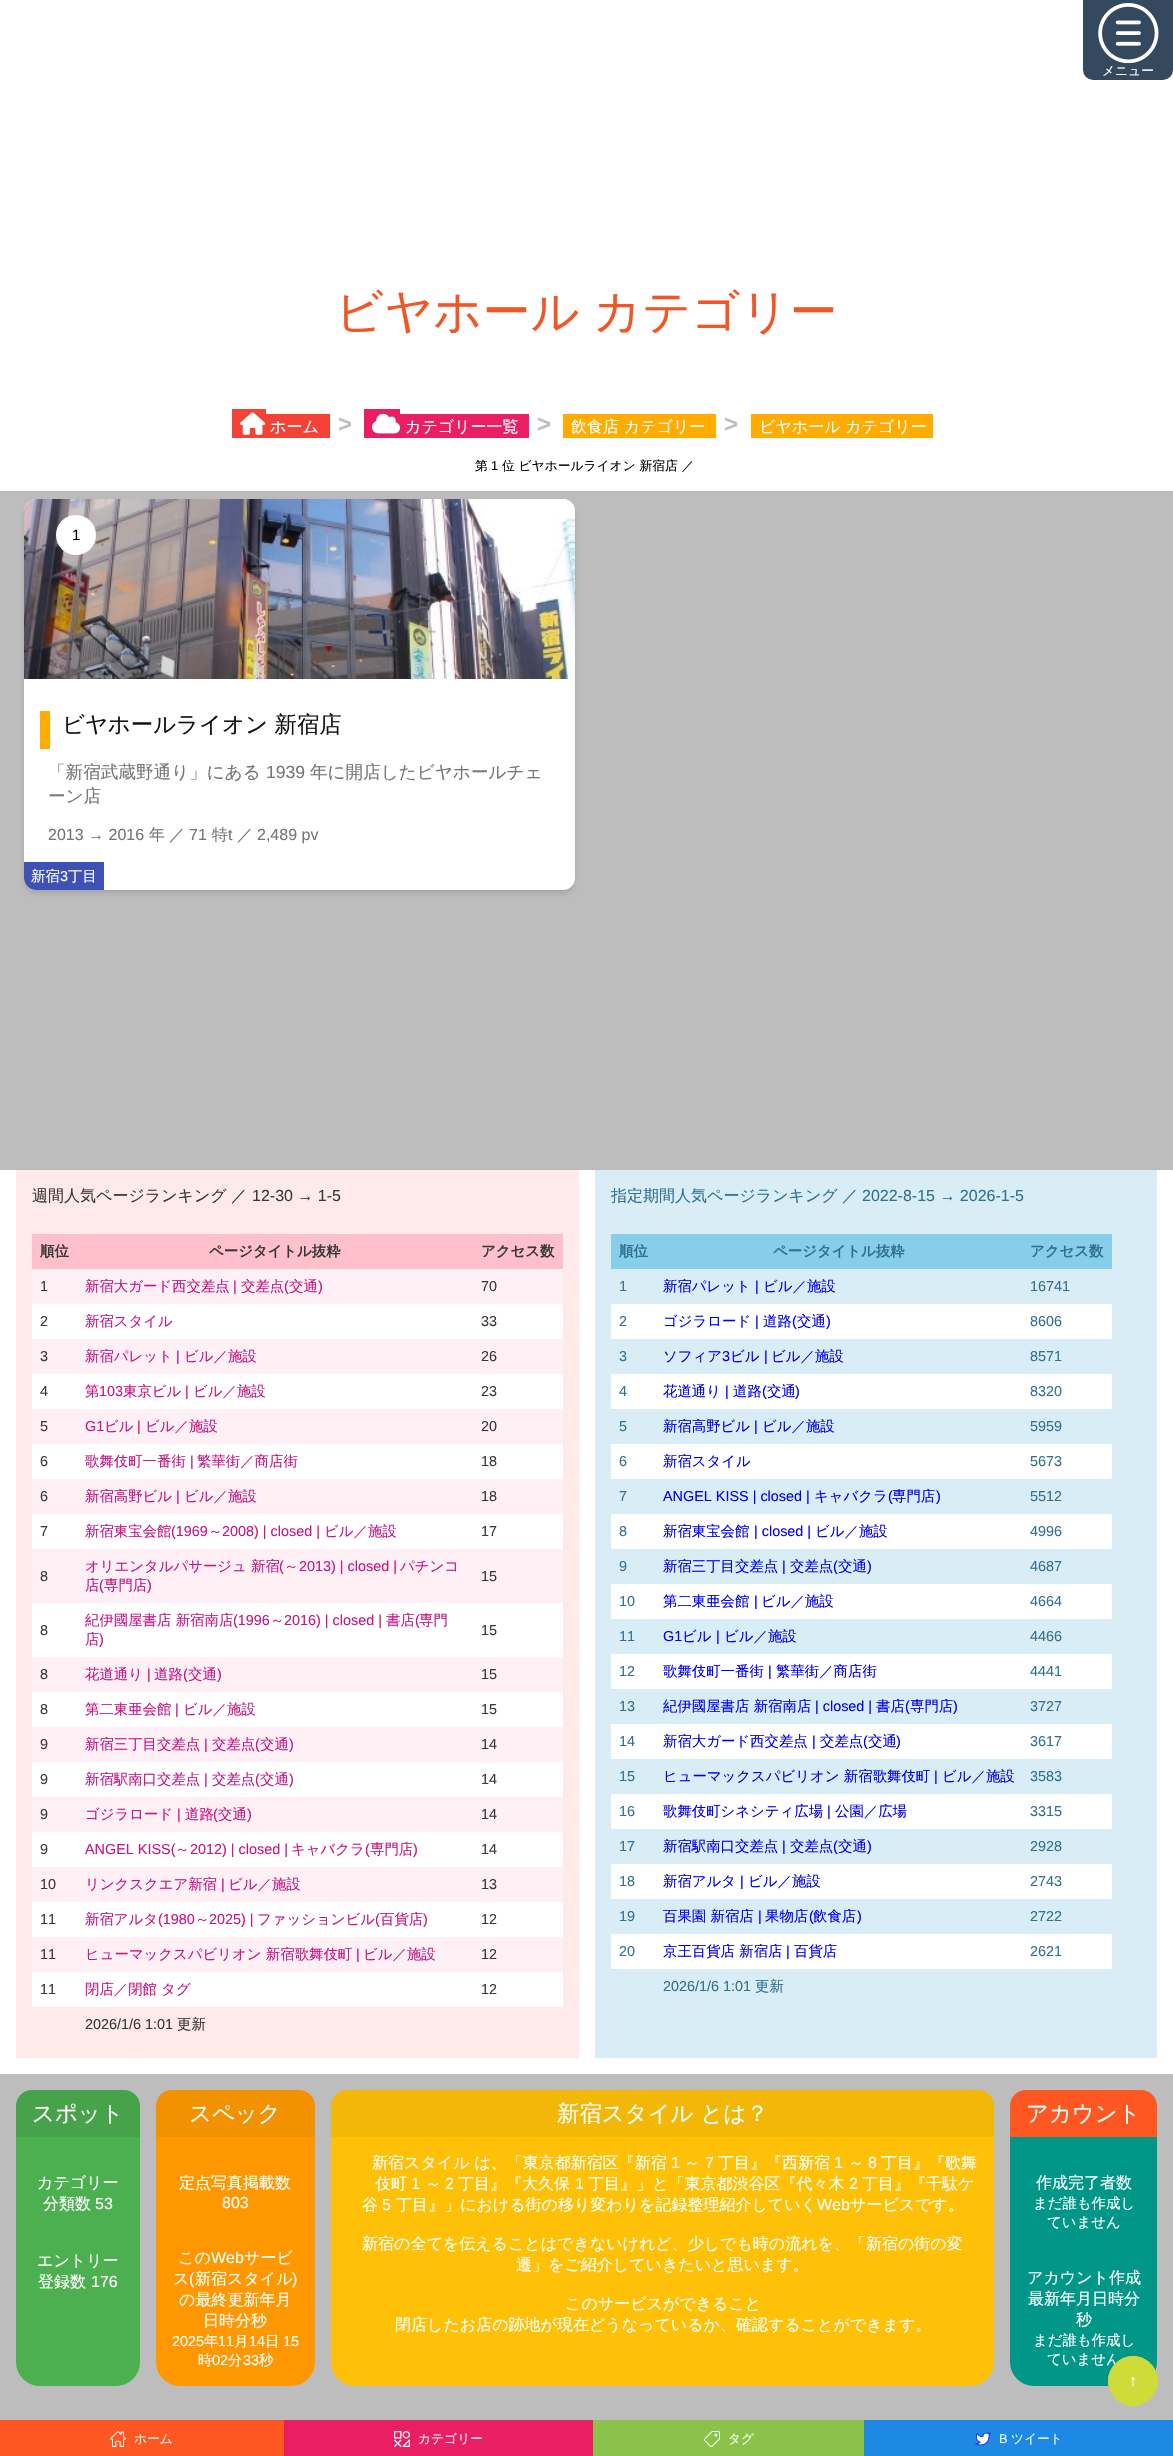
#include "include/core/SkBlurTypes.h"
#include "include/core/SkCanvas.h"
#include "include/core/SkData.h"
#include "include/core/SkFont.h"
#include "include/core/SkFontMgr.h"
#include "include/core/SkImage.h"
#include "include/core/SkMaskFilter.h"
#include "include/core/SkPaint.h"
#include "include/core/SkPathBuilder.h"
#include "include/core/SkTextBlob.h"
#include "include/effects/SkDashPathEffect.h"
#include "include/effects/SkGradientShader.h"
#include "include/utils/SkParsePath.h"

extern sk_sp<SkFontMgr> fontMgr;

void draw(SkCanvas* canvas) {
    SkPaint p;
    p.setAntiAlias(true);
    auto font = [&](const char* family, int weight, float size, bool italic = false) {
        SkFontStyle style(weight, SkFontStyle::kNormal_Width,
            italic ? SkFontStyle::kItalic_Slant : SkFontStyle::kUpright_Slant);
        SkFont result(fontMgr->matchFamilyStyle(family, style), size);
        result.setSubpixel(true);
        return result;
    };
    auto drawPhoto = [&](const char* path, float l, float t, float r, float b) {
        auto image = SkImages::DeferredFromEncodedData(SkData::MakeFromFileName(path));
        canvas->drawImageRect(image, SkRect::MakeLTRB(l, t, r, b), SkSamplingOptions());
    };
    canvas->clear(0xFFBDBDBD);
    p.setColor(0xFFFFFFFF);
    canvas->drawRect(SkRect::MakeLTRB(0, 0, 1173, 491), p);
    p.setColor(0xFF34495E);
    canvas->drawRoundRect(SkRect::MakeLTRB(1083, -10, 1173, 80), 10, 10, p);
    drawPhoto("media/1.png", 1098, 3, 1159, 63);
    auto font1 = font("WenQuanYi Zen Hei", 500, 12.75f);
    p.setColor(0xFFFFFFFF);
    canvas->drawString("メニュー", 1102, 75, font1, p);
    auto font2 = font("WenQuanYi Zen Hei", 500, 48);
    p.setColor(0xFFF35626);
    canvas->drawString("ビヤホール", 335, 328, font2, p);
    canvas->drawString("カテゴリー", 593, 328, font2, p);
    p.setColor(0xFFF44336);
    canvas->drawRect(SkRect::MakeLTRB(232, 409, 266, 438), p);
    canvas->drawRect(SkRect::MakeLTRB(266, 414, 330, 438), p);
    drawPhoto("media/2.png", 240, 412, 266, 435);
    auto font3 = font("WenQuanYi Zen Hei", 500, 16);
    p.setColor(0xFFFFFFFF);
    canvas->drawString("ホーム", 270, 432, font3, p);
    auto font4 = font("Liberation Sans", 700, 24);
    p.setColor(0xFFBDBDBD);
    canvas->drawString(">", 338, 432, font4, p);
    p.setColor(0xFFE91E63);
    canvas->drawRect(SkRect::MakeLTRB(364, 409, 400, 438), p);
    canvas->drawRect(SkRect::MakeLTRB(400, 414, 529, 438), p);
    drawPhoto("media/3.png", 372, 413, 400, 434);
    p.setColor(0xFFFFFFFF);
    canvas->drawString("カテゴリー一覧", 405, 432, font3, p);
    p.setColor(0xFFBDBDBD);
    canvas->drawString(">", 537, 432, font4, p);
    p.setColor(0xFFFFAB00);
    canvas->drawRect(SkRect::MakeLTRB(563, 414, 716, 438), p);
    p.setColor(0xFFFFFFFF);
    canvas->drawString("飲食店 カテゴリー", 571, 432, font3, p);
    p.setColor(0xFFBDBDBD);
    canvas->drawString(">", 724, 432, font4, p);
    p.setColor(0xFFFFAB00);
    canvas->drawRect(SkRect::MakeLTRB(751, 414, 933, 438), p);
    p.setColor(0xFFFFFFFF);
    canvas->drawString("ビヤホール カテゴリー", 759, 432, font3, p);
    p.setColor(0xFF000000);
    canvas->drawString("第", 475, 470, font1, p);
    auto font5 = font("Liberation Sans", 400, 12.75f);
    canvas->drawString("1", 491, 470, font5, p);
    canvas->drawString("位 ビヤホールライオン 新宿店 ／", 502, 470, font1, p);
    p.setColor(0x0F000000);
    p.setMaskFilter(SkMaskFilter::MakeBlur(kNormal_SkBlurStyle, 2));
    canvas->drawRoundRect(SkRect::MakeLTRB(25, 502, 574, 891), 11, 11, p);
    p.setMaskFilter(nullptr);
    p.setColor(0x1A000000);
    p.setMaskFilter(SkMaskFilter::MakeBlur(kNormal_SkBlurStyle, 3));
    canvas->drawRoundRect(SkRect::MakeLTRB(25, 504, 574, 893), 11, 11, p);
    p.setMaskFilter(nullptr);
    p.setColor(0xFFFFFFFF);
    canvas->drawRoundRect(SkRect::MakeLTRB(24, 499, 575, 890), 12, 12, p);
    drawPhoto("media/4.png", 24, 499, 575, 679);
    canvas->drawCircle(76, 535, 20, p);
    auto font6 = font("Liberation Sans", 400, 15);
    p.setColor(0xFF000000);
    canvas->drawString("1", 72, 540, font6, p);
    p.setColor(0xFFFFAB00);
    canvas->drawRect(SkRect::MakeLTRB(40, 711, 50, 749), p);
    auto font7 = font("WenQuanYi Zen Hei", 500, 22.4f);
    p.setColor(0xFF111111);
    canvas->drawString("ビヤホールライオン 新宿店", 62, 732, font7, p);
    auto font8 = font("WenQuanYi Zen Hei", 500, 17.6f);
    p.setColor(0xFF757575);
    canvas->drawString("「新宿武蔵野通り」にある", 48, 778, font8, p);
    auto font9 = font("Liberation Sans", 400, 17.6f);
    canvas->drawString("1939", 266, 778, font9, p);
    canvas->drawString("年に開店したビヤホールチェ", 310, 778, font8, p);
    canvas->drawString("ーン店", 48, 802, font8, p);
    auto font10 = font("Liberation Sans", 400, 16);
    canvas->drawString("2013 → 2016", 48, 840, font10, p);
    canvas->drawString("年", 149, 840, font3, p);
    canvas->drawString("／", 169, 840, font3, p);
    canvas->drawString("71", 189, 840, font10, p);
    canvas->drawString("特", 212, 840, font3, p);
    canvas->drawString("t", 228, 840, font10, p);
    canvas->drawString("／", 237, 840, font3, p);
    canvas->drawString("2,489 pv", 257, 840, font10, p);
    p.setColor(0xFF3F51B5);
    canvas->drawPath(SkPathBuilder().moveTo(24, 862).lineTo(104, 862).lineTo(104, 890).lineTo(36, 890).cubicTo(29.5f, 890, 24, 884.5f, 24, 878).close().detach(), p);
    auto font11 = font("WenQuanYi Zen Hei", 500, 14.4f);
    p.setColor(0xFFFFFFFF);
    canvas->drawString("新宿", 31, 881, font11, p);
    auto font12 = font("Liberation Sans", 400, 14.4f);
    canvas->drawString("3", 60, 881, font12, p);
    canvas->drawString("丁目", 68, 881, font11, p);
    canvas->drawRect(SkRect::MakeLTRB(0, 1170, 1173, 2074), p);
    p.setColor(0xFFFFE9E9);
    canvas->drawRect(SkRect::MakeLTRB(16, 1170, 579, 2058), p);
    p.setColor(0xFF393939);
    canvas->drawString("週間人気ページランキング", 32, 1201, font3, p);
    canvas->drawString("／", 231, 1201, font3, p);
    canvas->drawString("12-30 → 1-5", 252, 1201, font10, p);
    p.setColor(0xFFFFC0CB);
    canvas->drawRect(SkRect::MakeLTRB(32, 1234, 563, 1269), p);
    auto font13 = font("WenQuanYi Zen Hei", 700, 14.4f);
    p.setColor(0xFF393939);
    {
        const struct { const char* s; float x, y; } items[] = {
            {"順位", 40, 1256},
            {"ページタイトル抜粋", 209, 1256},
            {"アクセス数", 481, 1256},
        };
        for (auto [s, x, y] : items) {
            canvas->drawString(s, x, y, font13, p);
        }
    }
    p.setColor(0xFFFFF0F5);
    canvas->drawRect(SkRect::MakeLTRB(32, 1269, 563, 1304), p);
    p.setColor(0xFF393939);
    canvas->drawString("1", 40, 1291, font12, p);
    p.setColor(0xFFC71585);
    canvas->drawString("新宿大ガード西交差点", 85, 1291, font11, p);
    canvas->drawString("|", 233, 1291, font12, p);
    canvas->drawString("交差点", 241, 1291, font11, p);
    canvas->drawString("(", 284, 1291, font12, p);
    canvas->drawString("交通", 289, 1291, font11, p);
    canvas->drawString(")", 318, 1291, font12, p);
    p.setColor(0xFF393939);
    canvas->drawString("70", 481, 1291, font12, p);
    p.setColor(0xFFFFFFFF);
    canvas->drawRect(SkRect::MakeLTRB(32, 1304, 563, 1339), p);
    p.setColor(0xFF393939);
    canvas->drawString("2", 40, 1326, font12, p);
    p.setColor(0xFFC71585);
    canvas->drawString("新宿スタイル", 85, 1326, font11, p);
    p.setColor(0xFF393939);
    canvas->drawString("33", 481, 1326, font12, p);
    p.setColor(0xFFFFF0F5);
    canvas->drawRect(SkRect::MakeLTRB(32, 1339, 563, 1374), p);
    p.setColor(0xFF393939);
    canvas->drawString("3", 40, 1361, font12, p);
    p.setColor(0xFFC71585);
    canvas->drawString("新宿パレット", 85, 1361, font11, p);
    canvas->drawString("|", 176, 1361, font12, p);
    canvas->drawString("ビル／施設", 184, 1361, font11, p);
    p.setColor(0xFF393939);
    canvas->drawString("26", 481, 1361, font12, p);
    p.setColor(0xFFFFFFFF);
    canvas->drawRect(SkRect::MakeLTRB(32, 1374, 563, 1409), p);
    p.setColor(0xFF393939);
    canvas->drawString("4", 40, 1396, font12, p);
    p.setColor(0xFFC71585);
    canvas->drawString("第", 85, 1396, font11, p);
    canvas->drawString("103", 99, 1396, font12, p);
    canvas->drawString("東京ビル", 123, 1396, font11, p);
    canvas->drawString("|", 185, 1396, font12, p);
    canvas->drawString("ビル／施設", 193, 1396, font11, p);
    p.setColor(0xFF393939);
    canvas->drawString("23", 481, 1396, font12, p);
    p.setColor(0xFFFFF0F5);
    canvas->drawRect(SkRect::MakeLTRB(32, 1409, 563, 1444), p);
    p.setColor(0xFF393939);
    canvas->drawString("5", 40, 1431, font12, p);
    p.setColor(0xFFC71585);
    canvas->drawString("G1", 85, 1431, font12, p);
    canvas->drawString("ビル", 104, 1431, font11, p);
    canvas->drawString("|", 137, 1431, font12, p);
    canvas->drawString("ビル／施設", 145, 1431, font11, p);
    p.setColor(0xFF393939);
    canvas->drawString("20", 481, 1431, font12, p);
    p.setColor(0xFFFFFFFF);
    canvas->drawRect(SkRect::MakeLTRB(32, 1444, 563, 1479), p);
    p.setColor(0xFF393939);
    canvas->drawString("6", 40, 1466, font12, p);
    p.setColor(0xFFC71585);
    canvas->drawString("歌舞伎町一番街", 85, 1466, font11, p);
    canvas->drawString("|", 190, 1466, font12, p);
    canvas->drawString("繁華街／商店街", 197, 1466, font11, p);
    p.setColor(0xFF393939);
    canvas->drawString("18", 481, 1466, font12, p);
    p.setColor(0xFFFFF0F5);
    canvas->drawRect(SkRect::MakeLTRB(32, 1479, 563, 1514), p);
    p.setColor(0xFF393939);
    canvas->drawString("6", 40, 1501, font12, p);
    p.setColor(0xFFC71585);
    canvas->drawString("新宿高野ビル", 85, 1501, font11, p);
    canvas->drawString("|", 176, 1501, font12, p);
    canvas->drawString("ビル／施設", 184, 1501, font11, p);
    p.setColor(0xFF393939);
    canvas->drawString("18", 481, 1501, font12, p);
    p.setColor(0xFFFFFFFF);
    canvas->drawRect(SkRect::MakeLTRB(32, 1514, 563, 1549), p);
    p.setColor(0xFF393939);
    canvas->drawString("7", 40, 1536, font12, p);
    p.setColor(0xFFC71585);
    canvas->drawString("新宿東宝会館", 85, 1536, font11, p);
    canvas->drawString("(1969", 171, 1536, font12, p);
    canvas->drawString("～", 208, 1536, font11, p);
    canvas->drawString("2008) | closed |", 222, 1536, font12, p);
    canvas->drawString("ビル／施設", 324, 1536, font11, p);
    p.setColor(0xFF393939);
    canvas->drawString("17", 481, 1536, font12, p);
    p.setColor(0xFFFFF0F5);
    canvas->drawRect(SkRect::MakeLTRB(32, 1549, 563, 1603), p);
    p.setColor(0xFF393939);
    canvas->drawString("8", 40, 1581, font12, p);
    p.setColor(0xFFC71585);
    canvas->drawString("オリエンタルパサージュ 新宿", 85, 1571, font11, p);
    canvas->drawString("(", 279, 1571, font12, p);
    canvas->drawString("～", 284, 1571, font11, p);
    canvas->drawString("2013) | closed |", 299, 1571, font12, p);
    canvas->drawString("パチンコ", 400, 1571, font11, p);
    canvas->drawString("店", 85, 1590, font11, p);
    canvas->drawString("(", 99, 1590, font12, p);
    canvas->drawString("専門店", 104, 1590, font11, p);
    canvas->drawString(")", 147, 1590, font12, p);
    p.setColor(0xFF393939);
    canvas->drawString("15", 481, 1581, font12, p);
    p.setColor(0xFFFFFFFF);
    canvas->drawRect(SkRect::MakeLTRB(32, 1603, 563, 1657), p);
    p.setColor(0xFF393939);
    canvas->drawString("8", 40, 1635, font12, p);
    p.setColor(0xFFC71585);
    canvas->drawString("紀伊國屋書店 新宿南店", 85, 1625, font11, p);
    canvas->drawString("(1996", 233, 1625, font12, p);
    canvas->drawString("～", 270, 1625, font11, p);
    canvas->drawString("2016) | closed |", 284, 1625, font12, p);
    canvas->drawString("書店", 386, 1625, font11, p);
    canvas->drawString("(", 415, 1625, font12, p);
    canvas->drawString("専門", 419, 1625, font11, p);
    canvas->drawString("店", 85, 1644, font11, p);
    canvas->drawString(")", 99, 1644, font12, p);
    p.setColor(0xFF393939);
    canvas->drawString("15", 481, 1635, font12, p);
    p.setColor(0xFFFFF0F5);
    canvas->drawRect(SkRect::MakeLTRB(32, 1657, 563, 1692), p);
    p.setColor(0xFF393939);
    canvas->drawString("8", 40, 1679, font12, p);
    p.setColor(0xFFC71585);
    canvas->drawString("花道通り", 85, 1679, font11, p);
    canvas->drawString("|", 147, 1679, font12, p);
    canvas->drawString("道路", 154, 1679, font11, p);
    canvas->drawString("(", 183, 1679, font12, p);
    canvas->drawString("交通", 188, 1679, font11, p);
    canvas->drawString(")", 217, 1679, font12, p);
    p.setColor(0xFF393939);
    canvas->drawString("15", 481, 1679, font12, p);
    p.setColor(0xFFFFFFFF);
    canvas->drawRect(SkRect::MakeLTRB(32, 1692, 563, 1727), p);
    p.setColor(0xFF393939);
    canvas->drawString("8", 40, 1714, font12, p);
    p.setColor(0xFFC71585);
    canvas->drawString("第二東亜会館", 85, 1714, font11, p);
    canvas->drawString("|", 175, 1714, font12, p);
    canvas->drawString("ビル／施設", 183, 1714, font11, p);
    p.setColor(0xFF393939);
    canvas->drawString("15", 481, 1714, font12, p);
    p.setColor(0xFFFFF0F5);
    canvas->drawRect(SkRect::MakeLTRB(32, 1727, 563, 1762), p);
    p.setColor(0xFF393939);
    canvas->drawString("9", 40, 1749, font12, p);
    p.setColor(0xFFC71585);
    canvas->drawString("新宿三丁目交差点", 85, 1749, font11, p);
    canvas->drawString("|", 204, 1749, font12, p);
    canvas->drawString("交差点", 212, 1749, font11, p);
    canvas->drawString("(", 255, 1749, font12, p);
    canvas->drawString("交通", 260, 1749, font11, p);
    canvas->drawString(")", 289, 1749, font12, p);
    p.setColor(0xFF393939);
    canvas->drawString("14", 481, 1749, font12, p);
    p.setColor(0xFFFFFFFF);
    canvas->drawRect(SkRect::MakeLTRB(32, 1762, 563, 1797), p);
    p.setColor(0xFF393939);
    canvas->drawString("9", 40, 1784, font12, p);
    p.setColor(0xFFC71585);
    canvas->drawString("新宿駅南口交差点", 85, 1784, font11, p);
    canvas->drawString("|", 204, 1784, font12, p);
    canvas->drawString("交差点", 212, 1784, font11, p);
    canvas->drawString("(", 255, 1784, font12, p);
    canvas->drawString("交通", 260, 1784, font11, p);
    canvas->drawString(")", 289, 1784, font12, p);
    p.setColor(0xFF393939);
    canvas->drawString("14", 481, 1784, font12, p);
    p.setColor(0xFFFFF0F5);
    canvas->drawRect(SkRect::MakeLTRB(32, 1797, 563, 1832), p);
    p.setColor(0xFF393939);
    canvas->drawString("9", 40, 1819, font12, p);
    p.setColor(0xFFC71585);
    canvas->drawString("ゴジラロード", 85, 1819, font11, p);
    canvas->drawString("|", 177, 1819, font12, p);
    canvas->drawString("道路", 185, 1819, font11, p);
    canvas->drawString("(", 213, 1819, font12, p);
    canvas->drawString("交通", 218, 1819, font11, p);
    canvas->drawString(")", 247, 1819, font12, p);
    p.setColor(0xFF393939);
    canvas->drawString("14", 481, 1819, font12, p);
    p.setColor(0xFFFFFFFF);
    canvas->drawRect(SkRect::MakeLTRB(32, 1832, 563, 1867), p);
    p.setColor(0xFF393939);
    canvas->drawString("9", 40, 1854, font12, p);
    p.setColor(0xFFC71585);
    canvas->drawString("ANGEL KISS(", 85, 1854, font12, p);
    canvas->drawString("～", 175, 1854, font11, p);
    canvas->drawString("2012) | closed |", 190, 1854, font12, p);
    canvas->drawString("キャバクラ", 291, 1854, font11, p);
    canvas->drawString("(", 365, 1854, font12, p);
    canvas->drawString("専門店", 370, 1854, font11, p);
    canvas->drawString(")", 413, 1854, font12, p);
    p.setColor(0xFF393939);
    canvas->drawString("14", 481, 1854, font12, p);
    p.setColor(0xFFFFF0F5);
    canvas->drawRect(SkRect::MakeLTRB(32, 1867, 563, 1902), p);
    p.setColor(0xFF393939);
    canvas->drawString("10", 40, 1889, font12, p);
    p.setColor(0xFFC71585);
    canvas->drawString("リンクスクエア新宿", 85, 1889, font11, p);
    canvas->drawString("|", 221, 1889, font12, p);
    canvas->drawString("ビル／施設", 228, 1889, font11, p);
    p.setColor(0xFF393939);
    canvas->drawString("13", 481, 1889, font12, p);
    p.setColor(0xFFFFFFFF);
    canvas->drawRect(SkRect::MakeLTRB(32, 1902, 563, 1937), p);
    p.setColor(0xFF393939);
    canvas->drawString("11", 40, 1924, font12, p);
    p.setColor(0xFFC71585);
    canvas->drawString("新宿アルタ", 85, 1924, font11, p);
    canvas->drawString("(1980", 158, 1924, font12, p);
    canvas->drawString("～", 195, 1924, font11, p);
    canvas->drawString("2025) |", 209, 1924, font12, p);
    canvas->drawString("ファッションビル", 257, 1924, font11, p);
    canvas->drawString("(", 375, 1924, font12, p);
    canvas->drawString("百貨店", 380, 1924, font11, p);
    canvas->drawString(")", 423, 1924, font12, p);
    p.setColor(0xFF393939);
    canvas->drawString("12", 481, 1924, font12, p);
    p.setColor(0xFFFFF0F5);
    canvas->drawRect(SkRect::MakeLTRB(32, 1937, 563, 1972), p);
    p.setColor(0xFF393939);
    canvas->drawString("11", 40, 1959, font12, p);
    p.setColor(0xFFC71585);
    canvas->drawString("ヒューマックスパビリオン 新宿歌舞伎町", 85, 1959, font11, p);
    canvas->drawString("|", 356, 1959, font12, p);
    canvas->drawString("ビル／施設", 363, 1959, font11, p);
    p.setColor(0xFF393939);
    canvas->drawString("12", 481, 1959, font12, p);
    p.setColor(0xFFFFFFFF);
    canvas->drawRect(SkRect::MakeLTRB(32, 1972, 563, 2007), p);
    p.setColor(0xFF393939);
    canvas->drawString("11", 40, 1994, font12, p);
    p.setColor(0xFFC71585);
    canvas->drawString("閉店／閉館 タグ", 85, 1994, font11, p);
    p.setColor(0xFF393939);
    canvas->drawString("12", 481, 1994, font12, p);
    canvas->drawString("2026/1/6 1:01", 85, 2029, font12, p);
    canvas->drawString("更新", 177, 2029, font11, p);
    p.setColor(0xFFD9EDF7);
    canvas->drawRect(SkRect::MakeLTRB(595, 1170, 1157, 2058), p);
    p.setColor(0xFF31708F);
    canvas->drawString("指定期間人気ページランキング", 611, 1201, font3, p);
    canvas->drawString("／", 842, 1201, font3, p);
    canvas->drawString("2022-8-15 → 2026-1-5", 862, 1201, font10, p);
    p.setColor(0xFF87CEEB);
    canvas->drawRect(SkRect::MakeLTRB(611, 1234, 1112, 1269), p);
    p.setColor(0xFF31708F);
    {
        const struct { const char* s; float x, y; } items[] = {
            {"順位", 619, 1256},
            {"ページタイトル抜粋", 773, 1256},
            {"アクセス数", 1030, 1256},
        };
        for (auto [s, x, y] : items) {
            canvas->drawString(s, x, y, font13, p);
        }
    }
    canvas->drawString("1", 619, 1291, font12, p);
    p.setColor(0xFF0000EE);
    canvas->drawString("新宿パレット", 663, 1291, font11, p);
    canvas->drawString("|", 755, 1291, font12, p);
    canvas->drawString("ビル／施設", 763, 1291, font11, p);
    p.setColor(0xFF31708F);
    canvas->drawString("16741", 1030, 1291, font12, p);
    p.setColor(0xFFFFFFFF);
    canvas->drawRect(SkRect::MakeLTRB(611, 1304, 1112, 1339), p);
    p.setColor(0xFF31708F);
    canvas->drawString("2", 619, 1326, font12, p);
    p.setColor(0xFF0000EE);
    canvas->drawString("ゴジラロード", 663, 1326, font11, p);
    canvas->drawString("|", 755, 1326, font12, p);
    canvas->drawString("道路", 763, 1326, font11, p);
    canvas->drawString("(", 792, 1326, font12, p);
    canvas->drawString("交通", 797, 1326, font11, p);
    canvas->drawString(")", 826, 1326, font12, p);
    p.setColor(0xFF31708F);
    canvas->drawString("8606", 1030, 1326, font12, p);
    canvas->drawString("3", 619, 1361, font12, p);
    p.setColor(0xFF0000EE);
    canvas->drawString("ソフィア", 663, 1361, font11, p);
    canvas->drawString("3", 722, 1361, font12, p);
    canvas->drawString("ビル", 730, 1361, font11, p);
    canvas->drawString("|", 764, 1361, font12, p);
    canvas->drawString("ビル／施設", 771, 1361, font11, p);
    p.setColor(0xFF31708F);
    canvas->drawString("8571", 1030, 1361, font12, p);
    p.setColor(0xFFFFFFFF);
    canvas->drawRect(SkRect::MakeLTRB(611, 1374, 1112, 1409), p);
    p.setColor(0xFF31708F);
    canvas->drawString("4", 619, 1396, font12, p);
    p.setColor(0xFF0000EE);
    canvas->drawString("花道通り", 663, 1396, font11, p);
    canvas->drawString("|", 725, 1396, font12, p);
    canvas->drawString("道路", 733, 1396, font11, p);
    canvas->drawString("(", 762, 1396, font12, p);
    canvas->drawString("交通", 767, 1396, font11, p);
    canvas->drawString(")", 795, 1396, font12, p);
    p.setColor(0xFF31708F);
    canvas->drawString("8320", 1030, 1396, font12, p);
    canvas->drawString("5", 619, 1431, font12, p);
    p.setColor(0xFF0000EE);
    canvas->drawString("新宿高野ビル", 663, 1431, font11, p);
    canvas->drawString("|", 754, 1431, font12, p);
    canvas->drawString("ビル／施設", 762, 1431, font11, p);
    p.setColor(0xFF31708F);
    canvas->drawString("5959", 1030, 1431, font12, p);
    p.setColor(0xFFFFFFFF);
    canvas->drawRect(SkRect::MakeLTRB(611, 1444, 1112, 1479), p);
    p.setColor(0xFF31708F);
    canvas->drawString("6", 619, 1466, font12, p);
    p.setColor(0xFF0000EE);
    canvas->drawString("新宿スタイル", 663, 1466, font11, p);
    p.setColor(0xFF31708F);
    canvas->drawString("5673", 1030, 1466, font12, p);
    canvas->drawString("7", 619, 1501, font12, p);
    p.setColor(0xFF0000EE);
    canvas->drawString("ANGEL KISS | closed |", 663, 1501, font12, p);
    canvas->drawString("キャバクラ", 814, 1501, font11, p);
    canvas->drawString("(", 888, 1501, font12, p);
    canvas->drawString("専門店", 892, 1501, font11, p);
    canvas->drawString(")", 936, 1501, font12, p);
    p.setColor(0xFF31708F);
    canvas->drawString("5512", 1030, 1501, font12, p);
    p.setColor(0xFFFFFFFF);
    canvas->drawRect(SkRect::MakeLTRB(611, 1514, 1112, 1549), p);
    p.setColor(0xFF31708F);
    canvas->drawString("8", 619, 1536, font12, p);
    p.setColor(0xFF0000EE);
    canvas->drawString("新宿東宝会館", 663, 1536, font11, p);
    canvas->drawString("| closed |", 754, 1536, font12, p);
    canvas->drawString("ビル／施設", 815, 1536, font11, p);
    p.setColor(0xFF31708F);
    canvas->drawString("4996", 1030, 1536, font12, p);
    canvas->drawString("9", 619, 1571, font12, p);
    p.setColor(0xFF0000EE);
    canvas->drawString("新宿三丁目交差点", 663, 1571, font11, p);
    canvas->drawString("|", 782, 1571, font12, p);
    canvas->drawString("交差点", 790, 1571, font11, p);
    canvas->drawString("(", 833, 1571, font12, p);
    canvas->drawString("交通", 838, 1571, font11, p);
    canvas->drawString(")", 867, 1571, font12, p);
    p.setColor(0xFF31708F);
    canvas->drawString("4687", 1030, 1571, font12, p);
    p.setColor(0xFFFFFFFF);
    canvas->drawRect(SkRect::MakeLTRB(611, 1584, 1112, 1619), p);
    p.setColor(0xFF31708F);
    canvas->drawString("10", 619, 1606, font12, p);
    p.setColor(0xFF0000EE);
    canvas->drawString("第二東亜会館", 663, 1606, font11, p);
    canvas->drawString("|", 754, 1606, font12, p);
    canvas->drawString("ビル／施設", 761, 1606, font11, p);
    p.setColor(0xFF31708F);
    canvas->drawString("4664", 1030, 1606, font12, p);
    canvas->drawString("11", 619, 1641, font12, p);
    p.setColor(0xFF0000EE);
    canvas->drawString("G1", 663, 1641, font12, p);
    canvas->drawString("ビル", 682, 1641, font11, p);
    canvas->drawString("|", 716, 1641, font12, p);
    canvas->drawString("ビル／施設", 724, 1641, font11, p);
    p.setColor(0xFF31708F);
    canvas->drawString("4466", 1030, 1641, font12, p);
    p.setColor(0xFFFFFFFF);
    canvas->drawRect(SkRect::MakeLTRB(611, 1654, 1112, 1689), p);
    p.setColor(0xFF31708F);
    canvas->drawString("12", 619, 1676, font12, p);
    p.setColor(0xFF0000EE);
    canvas->drawString("歌舞伎町一番街", 663, 1676, font11, p);
    canvas->drawString("|", 768, 1676, font12, p);
    canvas->drawString("繁華街／商店街", 776, 1676, font11, p);
    p.setColor(0xFF31708F);
    canvas->drawString("4441", 1030, 1676, font12, p);
    canvas->drawString("13", 619, 1711, font12, p);
    p.setColor(0xFF0000EE);
    canvas->drawString("紀伊國屋書店 新宿南店", 663, 1711, font11, p);
    canvas->drawString("| closed |", 815, 1711, font12, p);
    canvas->drawString("書店", 876, 1711, font11, p);
    canvas->drawString("(", 905, 1711, font12, p);
    canvas->drawString("専門店", 910, 1711, font11, p);
    canvas->drawString(")", 953, 1711, font12, p);
    p.setColor(0xFF31708F);
    canvas->drawString("3727", 1030, 1711, font12, p);
    p.setColor(0xFFFFFFFF);
    canvas->drawRect(SkRect::MakeLTRB(611, 1724, 1112, 1759), p);
    p.setColor(0xFF31708F);
    canvas->drawString("14", 619, 1746, font12, p);
    p.setColor(0xFF0000EE);
    canvas->drawString("新宿大ガード西交差点", 663, 1746, font11, p);
    canvas->drawString("|", 812, 1746, font12, p);
    canvas->drawString("交差点", 820, 1746, font11, p);
    canvas->drawString("(", 863, 1746, font12, p);
    canvas->drawString("交通", 868, 1746, font11, p);
    canvas->drawString(")", 896, 1746, font12, p);
    p.setColor(0xFF31708F);
    canvas->drawString("3617", 1030, 1746, font12, p);
    canvas->drawString("15", 619, 1781, font12, p);
    p.setColor(0xFF0000EE);
    canvas->drawString("ヒューマックスパビリオン 新宿歌舞伎町", 663, 1781, font11, p);
    canvas->drawString("|", 934, 1781, font12, p);
    canvas->drawString("ビル／施設", 942, 1781, font11, p);
    p.setColor(0xFF31708F);
    canvas->drawString("3583", 1030, 1781, font12, p);
    p.setColor(0xFFFFFFFF);
    canvas->drawRect(SkRect::MakeLTRB(611, 1794, 1112, 1829), p);
    p.setColor(0xFF31708F);
    canvas->drawString("16", 619, 1816, font12, p);
    p.setColor(0xFF0000EE);
    canvas->drawString("歌舞伎町シネシティ広場", 663, 1816, font11, p);
    canvas->drawString("|", 827, 1816, font12, p);
    canvas->drawString("公園／広場", 835, 1816, font11, p);
    p.setColor(0xFF31708F);
    canvas->drawString("3315", 1030, 1816, font12, p);
    canvas->drawString("17", 619, 1851, font12, p);
    p.setColor(0xFF0000EE);
    canvas->drawString("新宿駅南口交差点", 663, 1851, font11, p);
    canvas->drawString("|", 782, 1851, font12, p);
    canvas->drawString("交差点", 790, 1851, font11, p);
    canvas->drawString("(", 833, 1851, font12, p);
    canvas->drawString("交通", 838, 1851, font11, p);
    canvas->drawString(")", 867, 1851, font12, p);
    p.setColor(0xFF31708F);
    canvas->drawString("2928", 1030, 1851, font12, p);
    p.setColor(0xFFFFFFFF);
    canvas->drawRect(SkRect::MakeLTRB(611, 1864, 1112, 1899), p);
    p.setColor(0xFF31708F);
    canvas->drawString("18", 619, 1886, font12, p);
    p.setColor(0xFF0000EE);
    canvas->drawString("新宿アルタ", 663, 1886, font11, p);
    canvas->drawString("|", 740, 1886, font12, p);
    canvas->drawString("ビル／施設", 748, 1886, font11, p);
    p.setColor(0xFF31708F);
    canvas->drawString("2743", 1030, 1886, font12, p);
    canvas->drawString("19", 619, 1921, font12, p);
    p.setColor(0xFF0000EE);
    canvas->drawString("百果園 新宿店", 663, 1921, font11, p);
    canvas->drawString("|", 758, 1921, font12, p);
    canvas->drawString("果物店", 765, 1921, font11, p);
    canvas->drawString("(", 809, 1921, font12, p);
    canvas->drawString("飲食店", 813, 1921, font11, p);
    canvas->drawString(")", 857, 1921, font12, p);
    p.setColor(0xFF31708F);
    canvas->drawString("2722", 1030, 1921, font12, p);
    p.setColor(0xFFFFFFFF);
    canvas->drawRect(SkRect::MakeLTRB(611, 1934, 1112, 1969), p);
    p.setColor(0xFF31708F);
    canvas->drawString("20", 619, 1956, font12, p);
    p.setColor(0xFF0000EE);
    canvas->drawString("京王百貨店 新宿店", 663, 1956, font11, p);
    canvas->drawString("|", 786, 1956, font12, p);
    canvas->drawString("百貨店", 794, 1956, font11, p);
    p.setColor(0xFF31708F);
    canvas->drawString("2621", 1030, 1956, font12, p);
    canvas->drawString("2026/1/6 1:01", 663, 1991, font12, p);
    canvas->drawString("更新", 755, 1991, font11, p);
    p.setColor(0xFF4CAF50);
    canvas->drawRoundRect(SkRect::MakeLTRB(16, 2090, 140, 2386), 24, 24, p);
    p.setColor(0xFF47A34A);
    canvas->drawPath(SkPathBuilder().moveTo(32, 2090).lineTo(124, 2090).cubicTo(133, 2090, 140, 2097, 140, 2106).lineTo(140, 2137).lineTo(16, 2137).lineTo(16, 2106).cubicTo(16, 2097, 23, 2090, 32, 2090).close().detach(), p);
    p.setColor(0xFFFFFFFF);
    canvas->drawString("スポット", 32, 2121, font7, p);
    canvas->drawString("カテゴリー", 37, 2188, font3, p);
    canvas->drawString("分類数", 43, 2209, font3, p);
    canvas->drawString("53", 95, 2209, font10, p);
    canvas->drawString("エントリー", 37, 2266, font3, p);
    canvas->drawString("登録数", 38, 2287, font3, p);
    canvas->drawString("176", 91, 2287, font10, p);
    p.setColor(0xFFFF9800);
    canvas->drawRoundRect(SkRect::MakeLTRB(156, 2090, 315, 2386), 24, 24, p);
    p.setColor(0xFFF39200);
    canvas->drawPath(SkPathBuilder().moveTo(172, 2090).lineTo(299, 2090).cubicTo(308, 2090, 315, 2097, 315, 2106).lineTo(315, 2137).lineTo(156, 2137).lineTo(156, 2106).cubicTo(156, 2097, 163, 2090, 172, 2090).close().detach(), p);
    p.setColor(0xFFFFFFFF);
    canvas->drawString("スペック", 189, 2121, font7, p);
    canvas->drawString("定点写真掲載数", 179, 2188, font3, p);
    canvas->drawString("803", 222, 2208, font10, p);
    canvas->drawString("この", 178, 2263, font3, p);
    canvas->drawString("Web", 211, 2263, font10, p);
    canvas->drawString("サービ", 244, 2263, font3, p);
    canvas->drawString("ス", 173, 2284, font3, p);
    canvas->drawString("(", 189, 2284, font10, p);
    canvas->drawString("新宿スタイル", 195, 2284, font3, p);
    canvas->drawString(")", 292, 2284, font10, p);
    canvas->drawString("の最終更新年月", 179, 2305, font3, p);
    canvas->drawString("日時分秒", 203, 2326, font3, p);
    canvas->drawString("2025", 172, 2346, font12, p);
    canvas->drawString("年", 204, 2346, font11, p);
    canvas->drawString("11", 218, 2346, font12, p);
    canvas->drawString("月", 234, 2346, font11, p);
    canvas->drawString("14", 249, 2346, font12, p);
    canvas->drawString("日", 265, 2346, font11, p);
    canvas->drawString("15", 283, 2346, font12, p);
    canvas->drawString("時", 198, 2365, font11, p);
    canvas->drawString("02", 212, 2365, font12, p);
    canvas->drawString("分", 228, 2365, font11, p);
    canvas->drawString("33", 243, 2365, font12, p);
    canvas->drawString("秒", 259, 2365, font11, p);
    p.setColor(0xFFFFC107);
    canvas->drawRoundRect(SkRect::MakeLTRB(331, 2090, 994, 2386), 24, 24, p);
    p.setColor(0xFFF3B807);
    canvas->drawPath(SkPathBuilder().moveTo(347, 2090).lineTo(978, 2090).cubicTo(987, 2090, 994, 2097, 994, 2106).lineTo(994, 2137).lineTo(331, 2137).lineTo(331, 2106).cubicTo(331, 2097, 338, 2090, 347, 2090).close().detach(), p);
    p.setColor(0xFFFFFFFF);
    canvas->drawString("新宿スタイル とは？", 557, 2121, font7, p);
    canvas->drawString("新宿スタイル は、「東京都新宿区『新宿", 372, 2168, font3, p);
    canvas->drawString("1", 671, 2168, font10, p);
    canvas->drawString("～", 684, 2168, font3, p);
    canvas->drawString("7", 705, 2168, font10, p);
    canvas->drawString("丁目』『西新宿", 718, 2168, font3, p);
    canvas->drawString("1", 834, 2168, font10, p);
    canvas->drawString("～", 848, 2168, font3, p);
    canvas->drawString("8", 868, 2168, font10, p);
    canvas->drawString("丁目』『歌舞", 881, 2168, font3, p);
    canvas->drawString("伎町", 375, 2189, font3, p);
    canvas->drawString("1", 411, 2189, font10, p);
    canvas->drawString("～", 425, 2189, font3, p);
    canvas->drawString("2", 445, 2189, font10, p);
    canvas->drawString("丁目』『大久保", 458, 2189, font3, p);
    canvas->drawString("1", 575, 2189, font10, p);
    canvas->drawString("丁目』」と「東京都渋谷区『代々木", 588, 2189, font3, p);
    canvas->drawString("2", 849, 2189, font10, p);
    canvas->drawString("丁目』『千駄ケ", 862, 2189, font3, p);
    canvas->drawString("谷", 362, 2210, font3, p);
    canvas->drawString("5", 382, 2210, font10, p);
    canvas->drawString("丁目』」における街の移り変わりを記録整理紹介していく", 396, 2210, font3, p);
    canvas->drawString("Web", 817, 2210, font10, p);
    {
        const struct { const char* s; float x, y; } items[] = {
            {"サービスです。", 850, 2210},
            {"新宿の全てを伝えることはできないけれど、少しでも時の流れを、「新宿の街の変", 362, 2249},
            {"遷」をご紹介していきたいと思います。", 516, 2270},
            {"このサービスができること", 565, 2309},
            {"閉店したお店の跡地が現在どうなっているか、確認することができます。", 395, 2330},
        };
        for (auto [s, x, y] : items) {
            canvas->drawString(s, x, y, font3, p);
        }
    }
    p.setColor(0xFF009688);
    canvas->drawRoundRect(SkRect::MakeLTRB(1010, 2090, 1157, 2386), 24, 24, p);
    p.setColor(0xFFFF5722);
    canvas->drawPath(SkPathBuilder().moveTo(1026, 2090).lineTo(1141, 2090).cubicTo(1150, 2090, 1157, 2097, 1157, 2106).lineTo(1157, 2137).lineTo(1010, 2137).lineTo(1010, 2106).cubicTo(1010, 2097, 1017, 2090, 1026, 2090).close().detach(), p);
    p.setColor(0xFFFFFFFF);
    canvas->drawString("アカウント", 1026, 2121, font7, p);
    canvas->drawString("作成完了者数", 1036, 2188, font3, p);
    canvas->drawString("まだ誰も作成し", 1033, 2208, font11, p);
    canvas->drawString("ていません", 1047, 2227, font11, p);
    {
        const struct { const char* s; float x, y; } items[] = {
            {"アカウント作成", 1027, 2283},
            {"最新年月日時分", 1028, 2304},
            {"秒", 1076, 2325},
        };
        for (auto [s, x, y] : items) {
            canvas->drawString(s, x, y, font3, p);
        }
    }
    canvas->drawString("まだ誰も作成し", 1033, 2345, font11, p);
    canvas->drawString("ていません", 1047, 2364, font11, p);
    p.setStyle(SkPaint::kStroke_Style);
    p.setStrokeWidth(1);
    p.setColor(0xFFCDDC39);
    canvas->drawCircle(1133, 2381, 24.5f, p);
    p.setStyle(SkPaint::kFill_Style);
    canvas->drawCircle(1133, 2381, 24.5f, p);
    p.setStyle(SkPaint::kStroke_Style);
    canvas->drawCircle(1133, 2381, 24.5f, p);
    p.setStyle(SkPaint::kFill_Style);
    p.setColor(0xFFFFFFFF);
    canvas->drawString("↑", 1129, 2386, font10, p);
    p.setColor(0xFFFF5722);
    canvas->drawRect(SkRect::MakeLTRB(0, 2420, 284, 2456), p);
    drawPhoto("media/5.png", 110, 2431, 126, 2447);
    p.setColor(0xFFFFEEE9);
    canvas->drawString("ホーム", 134, 2443, font1, p);
    p.setColor(0xFFE91E63);
    canvas->drawRect(SkRect::MakeLTRB(284, 2420, 593, 2456), p);
    drawPhoto("media/6.png", 394, 2431, 410, 2447);
    p.setColor(0xFFFDE9EF);
    canvas->drawString("カテゴリー", 418, 2443, font1, p);
    p.setColor(0xFF8BC34A);
    canvas->drawRect(SkRect::MakeLTRB(593, 2420, 864, 2456), p);
    drawPhoto("media/7.png", 704, 2431, 720, 2447);
    p.setColor(0xFFF3F9ED);
    canvas->drawString("タグ", 728, 2443, font1, p);
    p.setColor(0xFF1E88E5);
    canvas->drawRect(SkRect::MakeLTRB(864, 2420, 1173, 2456), p);
    drawPhoto("media/8.png", 975, 2432, 991, 2446);
    p.setColor(0xFFE9F3FC);
    canvas->drawString("B", 999, 2443, font5, p);
    canvas->drawString("ツイート", 1011, 2443, font1, p);
}
